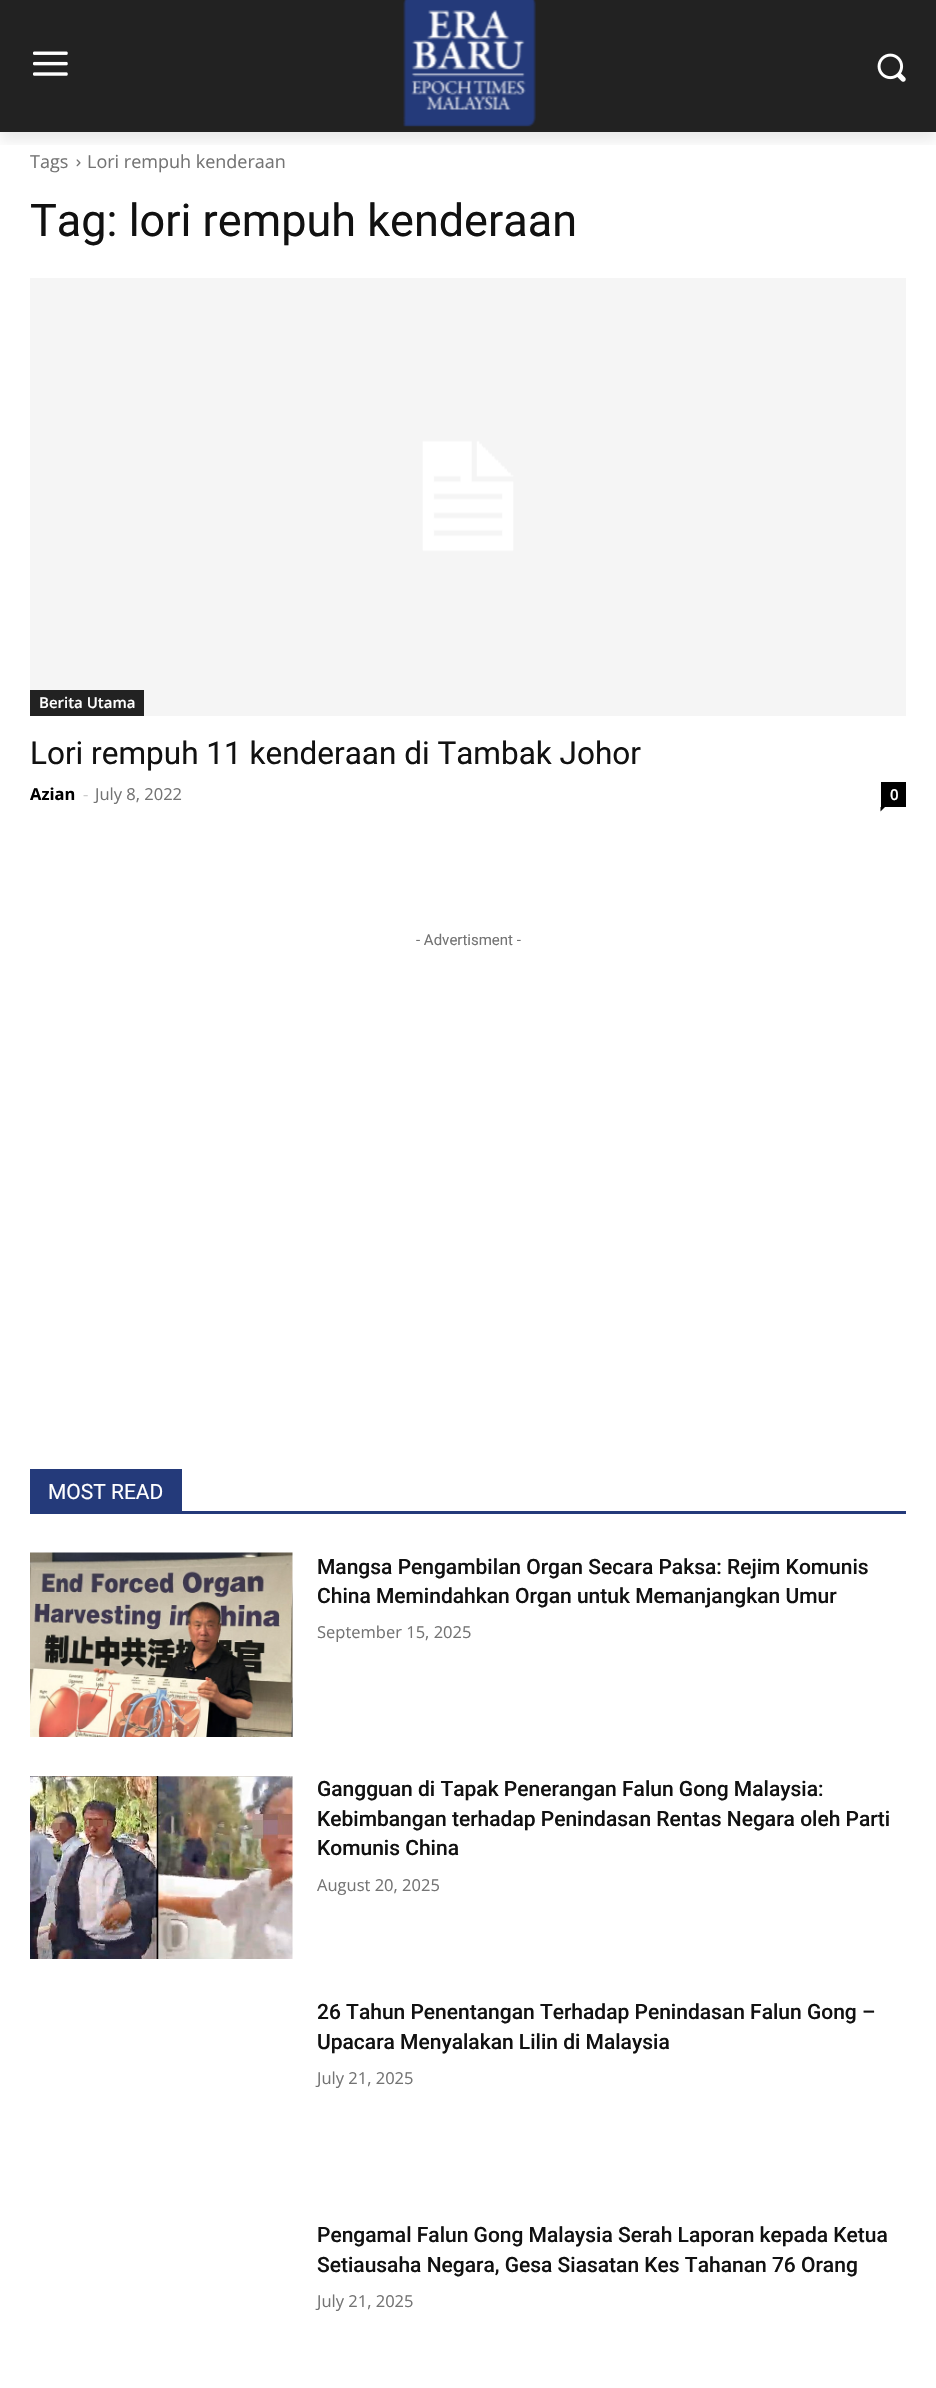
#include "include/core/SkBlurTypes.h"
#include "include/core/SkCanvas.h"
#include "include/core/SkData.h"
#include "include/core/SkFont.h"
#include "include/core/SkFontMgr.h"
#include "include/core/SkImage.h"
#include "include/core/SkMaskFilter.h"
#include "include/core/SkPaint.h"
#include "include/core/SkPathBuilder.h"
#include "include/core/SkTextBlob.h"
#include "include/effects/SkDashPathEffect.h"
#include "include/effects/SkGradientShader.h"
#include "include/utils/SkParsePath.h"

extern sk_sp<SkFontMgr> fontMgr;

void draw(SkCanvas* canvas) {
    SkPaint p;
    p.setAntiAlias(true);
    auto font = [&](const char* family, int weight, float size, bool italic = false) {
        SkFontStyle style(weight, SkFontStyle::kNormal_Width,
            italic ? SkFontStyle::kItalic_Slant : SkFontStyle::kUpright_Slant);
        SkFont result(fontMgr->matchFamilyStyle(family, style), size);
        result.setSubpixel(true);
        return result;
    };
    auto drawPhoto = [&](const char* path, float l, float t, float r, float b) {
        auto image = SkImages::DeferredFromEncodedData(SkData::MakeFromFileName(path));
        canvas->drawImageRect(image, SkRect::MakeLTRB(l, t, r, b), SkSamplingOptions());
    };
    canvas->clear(0xFFFFFFFF);
    p.setColor(0xFF222222);
    canvas->drawRect(SkRect::MakeLTRB(0, 0, 936, 132), p);
    drawPhoto("media/1.png", 33, 51, 68, 76);
    drawPhoto("media/2.png", 403, 0, 536, 127);
    drawPhoto("media/3.png", 877, 53, 906, 82);
    drawPhoto("media/4.png", 76, 159, 81, 167);
    canvas->save();
    canvas->clipRect(SkRect::MakeLTRB(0, 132, 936, 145));
    p.setColor(0x14000000);
    p.setMaskFilter(SkMaskFilter::MakeBlur(kNormal_SkBlurStyle, 6));
    canvas->drawRect(SkRect::MakeLTRB(0, 9, 936, 141), p);
    p.setMaskFilter(nullptr);
    canvas->restore();
    auto font1 = font("Open Sans", 400, 18);
    p.setColor(0xFF747474);
    canvas->drawString("Tags", 30, 168, font1, p);
    canvas->drawString("Lori rempuh kenderaan", 87, 168, font1, p);
    auto font2 = font("Roboto", 400, 45);
    p.setColor(0xFF111111);
    canvas->drawString("Tag: lori rempuh kenderaan", 30, 236, font2, p);
    drawPhoto("media/5.png", 30, 278, 906, 716);
    p.setColor(0xFF222222);
    canvas->drawRect(SkRect::MakeLTRB(30, 690, 144, 716), p);
    auto font3 = font("Open Sans", 600, 15);
    p.setColor(0xFFFFFFFF);
    canvas->drawString("Berita Utama", 39, 708, font3, p);
    auto font4 = font("Roboto", 400, 31.5f);
    p.setColor(0xFF111111);
    canvas->drawString("Lori rempuh 11 kenderaan di Tambak Johor", 30, 764, font4, p);
    auto font5 = font("Open Sans", 700, 16.5f);
    p.setColor(0xFF000000);
    canvas->drawString("Azian", 30, 800, font5, p);
    auto font6 = font("Open Sans", 400, 16.5f);
    p.setColor(0xFFCCCCCC);
    canvas->drawString("-", 83, 800, font6, p);
    p.setColor(0xFF747474);
    canvas->drawString("July 8, 2022", 95, 800, font6, p);
    p.setColor(0xFF000000);
    canvas->drawRect(SkRect::MakeLTRB(881, 782, 906, 807), p);
    p.setColor(0xFFFFFFFF);
    canvas->drawString("0", 890, 800, font3, p);
    p.setColor(0xFF000000);
    canvas->drawPath(SkPathBuilder().moveTo(880.5f, 807).lineTo(885, 807).lineTo(880.5f, 811.5f).close().detach(), p);
    auto font7 = font("Roboto", 400, 15);
    p.setColor(0xFF747474);
    canvas->drawString("- Advertisment -", 416, 945, font7, p);
    p.setColor(0xFF243A7A);
    canvas->drawRect(SkRect::MakeLTRB(30, 1511, 906, 1514), p);
    canvas->drawRect(SkRect::MakeLTRB(30, 1469, 182, 1511), p);
    auto font8 = font("Roboto", 400, 21);
    p.setColor(0xFFFFFFFF);
    canvas->drawString("MOST READ", 48, 1499, font8, p);
    drawPhoto("media/6.png", 30, 1552, 293, 1737);
    auto font9 = font("Roboto", 500, 21);
    p.setColor(0xFF111111);
    canvas->drawString("Mangsa Pengambilan Organ Secara Paksa: Rejim Komunis", 317, 1574, font9, p);
    canvas->drawString("China Memindahkan Organ untuk Memanjangkan Umur", 317, 1603, font9, p);
    p.setColor(0xFF747474);
    canvas->drawString("September 15, 2025", 317, 1638, font6, p);
    drawPhoto("media/7.png", 30, 1776, 293, 1959);
    p.setColor(0xFF111111);
    {
        const struct { const char* s; float x, y; } items[] = {
            {"Gangguan di Tapak Penerangan Falun Gong Malaysia:", 317, 1796},
            {"Kebimbangan terhadap Penindasan Rentas Negara oleh Parti", 317, 1826},
            {"Komunis China", 317, 1855},
        };
        for (auto [s, x, y] : items) {
            canvas->drawString(s, x, y, font9, p);
        }
    }
    p.setColor(0xFF747474);
    canvas->drawString("August 20, 2025", 317, 1891, font6, p);
    p.setColor(0xFF111111);
    canvas->drawString("26 Tahun Penentangan Terhadap Penindasan Falun Gong –", 317, 2019, font9, p);
    canvas->drawString("Upacara Menyalakan Lilin di Malaysia", 317, 2049, font9, p);
    p.setColor(0xFF747474);
    canvas->drawString("July 21, 2025", 317, 2084, font6, p);
    p.setColor(0xFF111111);
    canvas->drawString("Pengamal Falun Gong Malaysia Serah Laporan kepada Ketua", 317, 2242, font9, p);
    canvas->drawString("Setiausaha Negara, Gesa Siasatan Kes Tahanan 76 Orang", 317, 2272, font9, p);
    p.setColor(0xFF747474);
    canvas->drawString("July 21, 2025", 317, 2307, font6, p);
}
